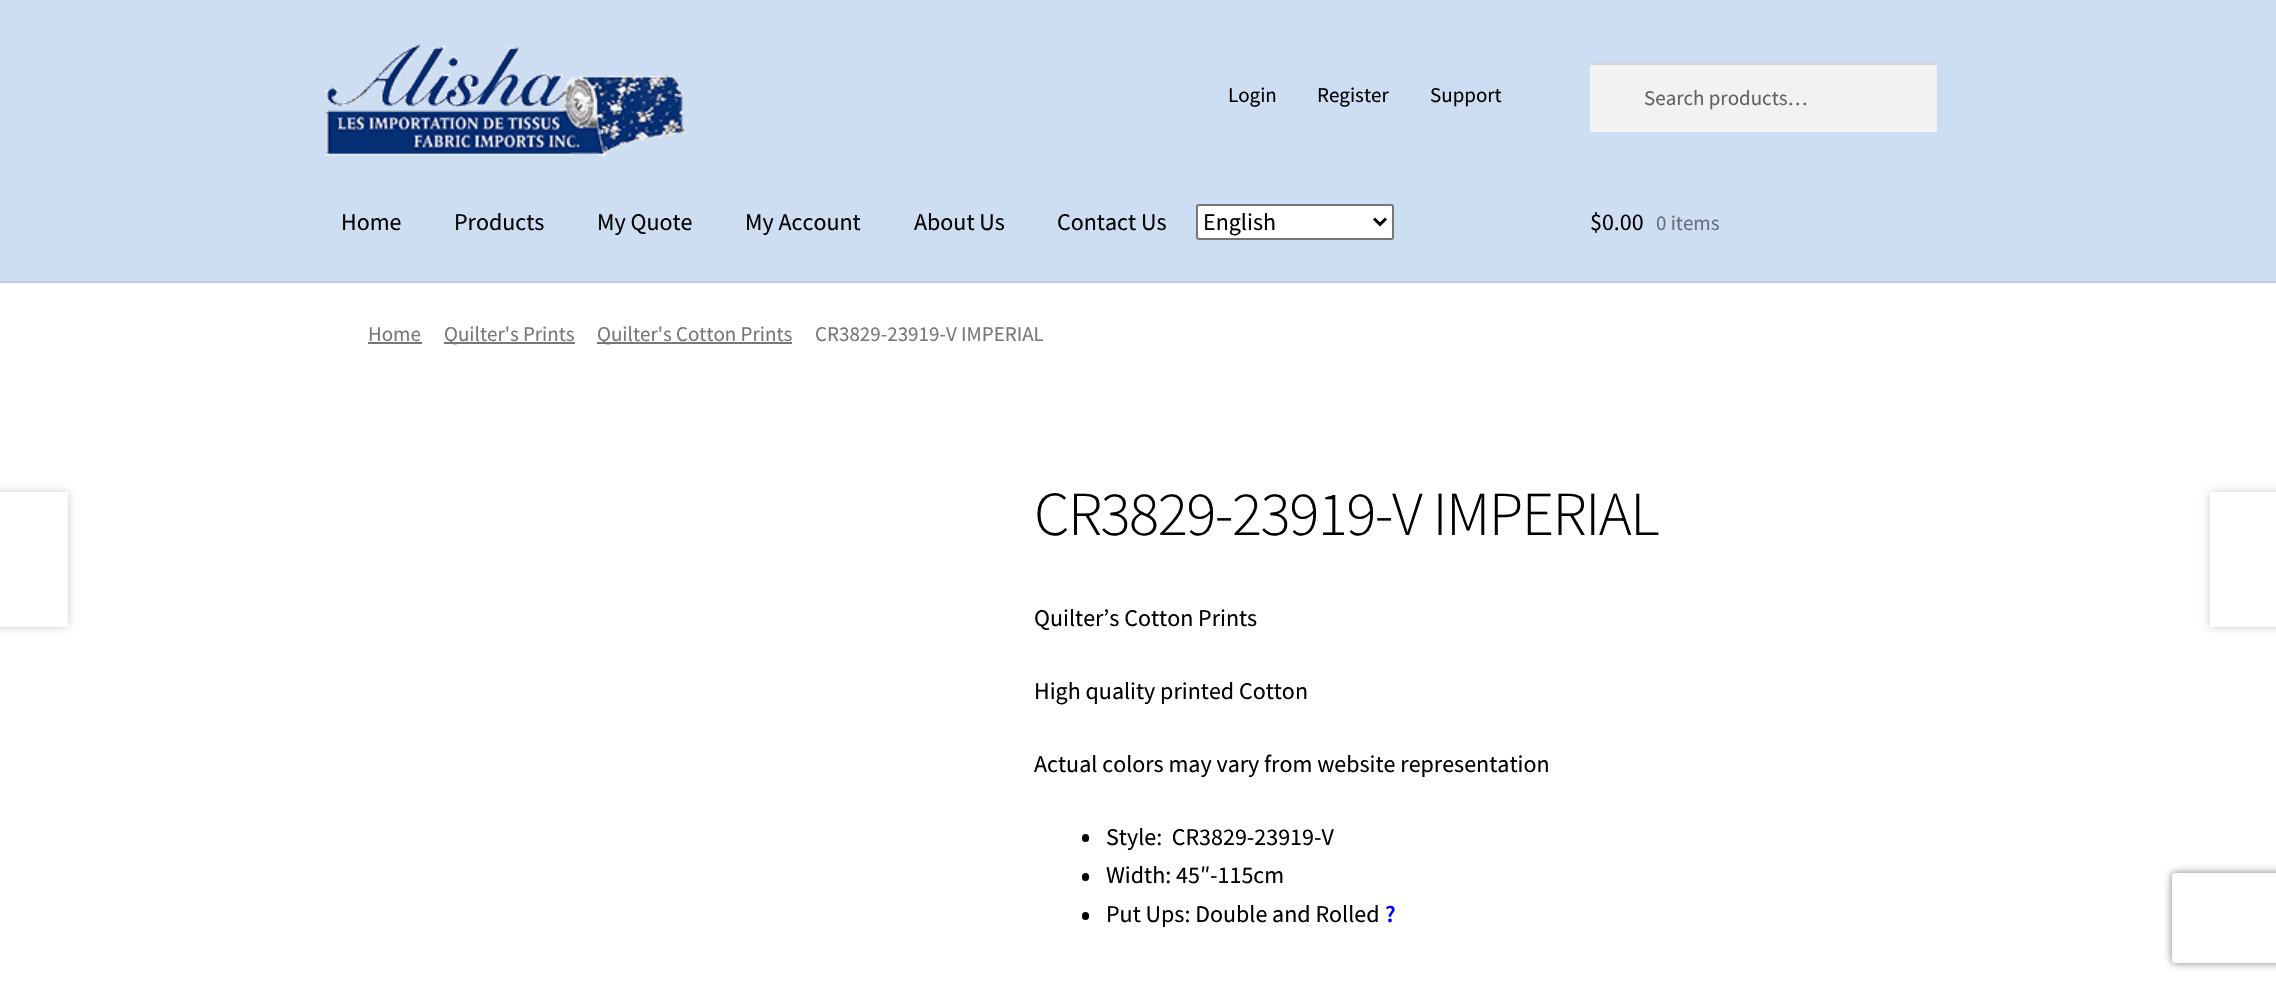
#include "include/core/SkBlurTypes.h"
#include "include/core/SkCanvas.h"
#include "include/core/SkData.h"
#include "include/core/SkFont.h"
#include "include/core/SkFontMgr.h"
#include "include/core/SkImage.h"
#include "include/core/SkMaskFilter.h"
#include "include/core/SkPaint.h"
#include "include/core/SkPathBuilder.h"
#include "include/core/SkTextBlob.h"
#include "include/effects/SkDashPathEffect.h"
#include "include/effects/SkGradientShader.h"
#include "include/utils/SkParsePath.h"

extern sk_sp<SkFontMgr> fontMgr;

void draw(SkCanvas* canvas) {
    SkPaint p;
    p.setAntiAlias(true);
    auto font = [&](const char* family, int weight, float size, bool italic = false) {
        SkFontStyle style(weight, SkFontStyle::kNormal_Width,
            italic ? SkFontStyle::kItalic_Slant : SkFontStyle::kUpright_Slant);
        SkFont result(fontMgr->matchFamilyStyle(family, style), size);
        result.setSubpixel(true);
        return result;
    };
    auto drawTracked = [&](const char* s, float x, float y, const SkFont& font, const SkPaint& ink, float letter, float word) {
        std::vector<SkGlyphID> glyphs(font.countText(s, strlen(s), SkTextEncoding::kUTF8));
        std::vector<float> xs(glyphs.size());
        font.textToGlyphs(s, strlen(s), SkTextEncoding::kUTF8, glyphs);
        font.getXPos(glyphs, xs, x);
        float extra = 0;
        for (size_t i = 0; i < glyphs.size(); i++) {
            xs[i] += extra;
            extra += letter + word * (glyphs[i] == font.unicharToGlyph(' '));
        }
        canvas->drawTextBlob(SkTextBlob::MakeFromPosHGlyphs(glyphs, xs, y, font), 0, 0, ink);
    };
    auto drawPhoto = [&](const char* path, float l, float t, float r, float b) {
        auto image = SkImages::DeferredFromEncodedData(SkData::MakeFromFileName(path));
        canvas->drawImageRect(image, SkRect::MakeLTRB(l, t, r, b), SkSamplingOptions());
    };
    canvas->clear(0xFFFFFFFF);
    p.setColor(0xFFCDDDF2);
    canvas->drawRect(SkRect::MakeLTRB(0, 0, 2276, 281), p);
    drawPhoto("media/1.png", 325, 44, 686, 157);
    p.setColor(0xFFBECEE3);
    canvas->drawRect(SkRect::MakeLTRB(0, 281, 2276, 283), p);
    auto font1 = font("Source Sans Pro", 400, 21);
    p.setColor(0xFF000000);
    {
        const struct { const char* s; float x, y; } items[] = {
            {"Login", 1228, 102},
            {"Register", 1317, 102},
            {"Support", 1430, 102},
        };
        for (auto [s, x, y] : items) {
            canvas->drawString(s, x, y, font1, p);
        }
    }
    p.setColor(0xFFF2F2F2);
    canvas->drawRect(SkRect::MakeLTRB(1590, 65, 1937, 132), p);
    p.setColor(0xFFD4D4D4);
    canvas->drawRect(SkRect::MakeLTRB(1590, 63, 1937, 65), p);
    p.setColor(0xFF616161);
    canvas->drawString("Search products…", 1644, 105, font1, p);
    auto font2 = font("Source Sans Pro", 400, 24);
    p.setColor(0xFF000000);
    {
        const struct { const char* s; float x, y; } items[] = {
            {"Home", 341, 230},
            {"Products", 454, 230},
            {"My Quote", 597, 230},
            {"My Account", 745, 230},
            {"About Us", 914, 230},
            {"Contact Us", 1057, 230},
        };
        for (auto [s, x, y] : items) {
            canvas->drawString(s, x, y, font2, p);
        }
    }
    p.setColor(0xFFFFFFFF);
    canvas->drawRoundRect(SkRect::MakeLTRB(1197, 205, 1393, 239), 2, 2, p);
    p.setStyle(SkPaint::kStroke_Style);
    p.setStrokeWidth(2);
    p.setColor(0xFF767676);
    canvas->drawRoundRect(SkRect::MakeLTRB(1197, 205, 1393, 239), 2, 2, p);
    p.setStrokeWidth(3);
    p.setColor(0xFF000000);
    canvas->drawPath(SkPathBuilder().moveTo(1374, 218.5f).lineTo(1380, 224.5f).lineTo(1386, 218.5f).detach(), p);
    p.setStyle(SkPaint::kFill_Style);
    canvas->drawString("English", 1203, 230, font2, p);
    canvas->drawString("$0.00", 1590, 230, font2, p);
    p.setColor(0xFF676F79);
    canvas->drawString("0 items", 1656, 230, font1, p);
    p.setColor(0xFF777777);
    canvas->drawString("Home", 368, 341, font1, p);
    canvas->drawRect(SkRect::MakeLTRB(368, 342, 422, 344), p);
    canvas->drawRect(SkRect::MakeLTRB(444, 342, 575, 344), p);
    canvas->drawString("Quilter's Prints", 444, 341, font1, p);
    canvas->drawRect(SkRect::MakeLTRB(597, 342, 792, 344), p);
    canvas->drawString("Quilter's Cotton Prints", 597, 341, font1, p);
    canvas->drawString("CR3829-23919-V IMPERIAL", 815, 341, font1, p);
    p.setColor(0x33000000);
    p.setMaskFilter(SkMaskFilter::MakeBlur(kNormal_SkBlurStyle, 4));
    canvas->drawRect(SkRect::MakeLTRB(-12, 492, 68, 627), p);
    p.setMaskFilter(nullptr);
    p.setColor(0xFFFFFFFF);
    canvas->drawRect(SkRect::MakeLTRB(0, 492, 68, 627), p);
    canvas->save();
    canvas->clipPath(SkPathBuilder(SkPathFillType::kEvenOdd).moveTo(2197, 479).lineTo(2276, 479).lineTo(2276, 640).lineTo(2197, 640).close().moveTo(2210, 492).lineTo(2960, 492).lineTo(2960, 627).lineTo(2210, 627).close().detach(), true);
    p.setColor(0x33000000);
    p.setMaskFilter(SkMaskFilter::MakeBlur(kNormal_SkBlurStyle, 4));
    canvas->drawRect(SkRect::MakeLTRB(2210, 492, 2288, 627), p);
    p.setMaskFilter(nullptr);
    canvas->restore();
    auto font3 = font("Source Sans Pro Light", 300, 62.75f);
    p.setColor(0xFF000000);
    drawTracked("CR3829-23919-V IMPERIAL", 1034, 535, font3, p, -1.5f, 0);
    {
        const struct { const char* s; float x, y; } items[] = {
            {"Quilter’s Cotton Prints", 1034, 626},
            {"High quality printed Cotton", 1034, 699},
            {"Actual colors may vary from website representation", 1034, 772},
        };
        for (auto [s, x, y] : items) {
            canvas->drawString(s, x, y, font2, p);
        }
    }
    canvas->drawRoundRect(SkRect::MakeLTRB(1082, 834, 1089, 842), 3.5f, 3.5f, p);
    canvas->drawString("Style:  CR3829-23919-V", 1106, 845, font2, p);
    canvas->drawRoundRect(SkRect::MakeLTRB(1082, 873, 1089, 881), 3.5f, 3.5f, p);
    canvas->drawString("Width: 45″-115cm", 1106, 883, font2, p);
    canvas->drawRoundRect(SkRect::MakeLTRB(1082, 912, 1089, 920), 3.5f, 3.5f, p);
    canvas->drawString("Put Ups: Double and Rolled", 1106, 922, font2, p);
    auto font4 = font("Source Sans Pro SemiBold", 600, 24);
    p.setColor(0xFF0000FF);
    canvas->drawString("?", 1385, 922, font4, p);
    canvas->save();
    canvas->clipPath(SkPathBuilder(SkPathFillType::kEvenOdd).moveTo(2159, 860).lineTo(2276, 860).lineTo(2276, 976).lineTo(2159, 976).close().moveTo(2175, 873).lineTo(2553, 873).cubicTo(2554.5f, 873, 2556, 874.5f, 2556, 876).lineTo(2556, 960).cubicTo(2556, 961.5f, 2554.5f, 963, 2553, 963).lineTo(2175, 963).cubicTo(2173.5f, 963, 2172, 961.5f, 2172, 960).lineTo(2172, 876).cubicTo(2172, 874.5f, 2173.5f, 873, 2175, 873).close().detach(), true);
    p.setColor(0xFF808080);
    p.setMaskFilter(SkMaskFilter::MakeBlur(kNormal_SkBlurStyle, 4));
    canvas->drawRoundRect(SkRect::MakeLTRB(2172, 873, 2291, 963), 3, 3, p);
    p.setMaskFilter(nullptr);
    canvas->restore();
}
